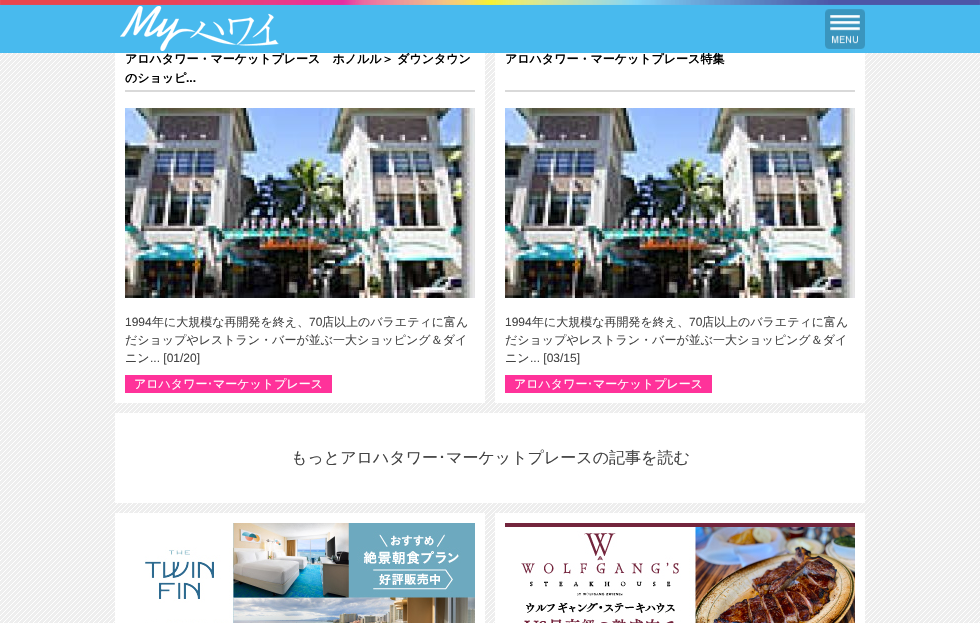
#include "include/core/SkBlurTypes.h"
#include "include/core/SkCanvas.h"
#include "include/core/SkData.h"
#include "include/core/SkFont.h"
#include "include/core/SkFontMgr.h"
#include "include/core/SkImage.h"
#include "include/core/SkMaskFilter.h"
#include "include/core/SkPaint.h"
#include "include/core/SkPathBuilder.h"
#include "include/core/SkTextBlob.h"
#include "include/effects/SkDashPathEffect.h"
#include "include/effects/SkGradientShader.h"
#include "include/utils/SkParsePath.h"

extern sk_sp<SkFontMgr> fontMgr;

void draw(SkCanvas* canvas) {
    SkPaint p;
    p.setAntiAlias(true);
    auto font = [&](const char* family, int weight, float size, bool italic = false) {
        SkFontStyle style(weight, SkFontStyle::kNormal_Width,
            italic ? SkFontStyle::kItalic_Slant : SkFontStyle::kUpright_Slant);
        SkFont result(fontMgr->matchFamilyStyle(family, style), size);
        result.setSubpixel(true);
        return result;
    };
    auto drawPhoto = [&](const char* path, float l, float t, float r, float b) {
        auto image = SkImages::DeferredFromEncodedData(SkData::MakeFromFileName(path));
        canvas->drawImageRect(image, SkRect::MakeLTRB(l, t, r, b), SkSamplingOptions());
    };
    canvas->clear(0xFFFFFFFF);
    drawPhoto("media/1.png", 0, 53, 980, 623);
    p.setColor(0xFFFFFFFF);
    canvas->drawRect(SkRect::MakeLTRB(115, 53, 485, 403), p);
    auto font1 = font("WenQuanYi Zen Hei", 700, 12);
    p.setColor(0xFF000000);
    canvas->drawString("アロハタワー・マーケットプレース　ホノルル＞ ダウンタウン", 125, 63, font1, p);
    p.setColor(0xFFFFFFFF);
    canvas->drawRect(SkRect::MakeLTRB(495, 53, 865, 403), p);
    p.setColor(0xFF000000);
    canvas->drawString("アロハタワー・マーケットプレース特集", 505, 63, font1, p);
    p.setColor(0xFF48BAEE);
    canvas->drawRect(SkRect::MakeLTRB(0, 0, 980, 53), p);
    drawPhoto("media/2.png", 0, 0, 980, 5);
    drawPhoto("media/3.png", 120, 6, 279, 51);
    drawPhoto("media/4.png", 825, 9, 865, 49);
    p.setColor(0xFFD9D9D9);
    canvas->drawRect(SkRect::MakeLTRB(125, 90, 475, 92), p);
    p.setColor(0xFF000000);
    canvas->drawString("のショッピ", 125, 82, font1, p);
    auto font2 = font("Liberation Sans", 700, 12);
    canvas->drawString("...", 186, 82, font2, p);
    drawPhoto("media/5.png", 125, 108, 475, 298);
    auto font3 = font("Liberation Sans", 400, 12);
    p.setColor(0xFF444444);
    canvas->drawString("1994", 125, 326, font3, p);
    auto font4 = font("WenQuanYi Zen Hei", 500, 12);
    canvas->drawString("年に大規模な再開発を終え、", 152, 326, font4, p);
    canvas->drawString("70", 309, 326, font3, p);
    {
        const struct { const char* s; float x, y; } items[] = {
            {"店以上のバラエティに富ん", 322, 326},
            {"だショップやレストラン・バーが並ぶ一大ショッピング＆ダイ", 125, 344},
            {"ニン", 125, 362},
        };
        for (auto [s, x, y] : items) {
            canvas->drawString(s, x, y, font4, p);
        }
    }
    canvas->drawString("... [01/20]", 150, 362, font3, p);
    p.setColor(0xFFFF329A);
    canvas->drawRect(SkRect::MakeLTRB(125, 375, 332, 393), p);
    p.setColor(0xFFFFFFFF);
    canvas->drawString("アロハタワー", 134, 388, font4, p);
    auto font5 = font("IPAPGothic", 400, 12);
    canvas->drawString("･", 207, 388, font5, p);
    canvas->drawString("マーケットプレース", 213, 388, font4, p);
    p.setColor(0xFFD9D9D9);
    canvas->drawRect(SkRect::MakeLTRB(505, 90, 855, 92), p);
    drawPhoto("media/5.png", 505, 108, 855, 298);
    p.setColor(0xFF444444);
    canvas->drawString("1994", 505, 326, font3, p);
    canvas->drawString("年に大規模な再開発を終え、", 532, 326, font4, p);
    canvas->drawString("70", 689, 326, font3, p);
    {
        const struct { const char* s; float x, y; } items[] = {
            {"店以上のバラエティに富ん", 702, 326},
            {"だショップやレストラン・バーが並ぶ一大ショッピング＆ダイ", 505, 344},
            {"ニン", 505, 362},
        };
        for (auto [s, x, y] : items) {
            canvas->drawString(s, x, y, font4, p);
        }
    }
    canvas->drawString("... [03/15]", 530, 362, font3, p);
    p.setColor(0xFFFF329A);
    canvas->drawRect(SkRect::MakeLTRB(505, 375, 712, 393), p);
    p.setColor(0xFFFFFFFF);
    canvas->drawString("アロハタワー", 514, 388, font4, p);
    canvas->drawString("･", 587, 388, font5, p);
    canvas->drawString("マーケットプレース", 593, 388, font4, p);
    canvas->drawRect(SkRect::MakeLTRB(115, 413, 865, 503), p);
    auto font6 = font("WenQuanYi Zen Hei", 500, 16);
    p.setColor(0xFF444444);
    canvas->drawString("もっとアロハタワー", 291, 463, font6, p);
    auto font7 = font("IPAPGothic", 400, 16);
    canvas->drawString("･", 438, 463, font7, p);
    canvas->drawString("マーケットプレースの記事を読む", 446, 463, font6, p);
    p.setColor(0xFFFFFFFF);
    canvas->drawRect(SkRect::MakeLTRB(115, 513, 485, 623), p);
    drawPhoto("media/6.png", 144, 523, 475, 623);
    canvas->drawRect(SkRect::MakeLTRB(495, 513, 865, 623), p);
    drawPhoto("media/7.png", 505, 523, 855, 623);
}
